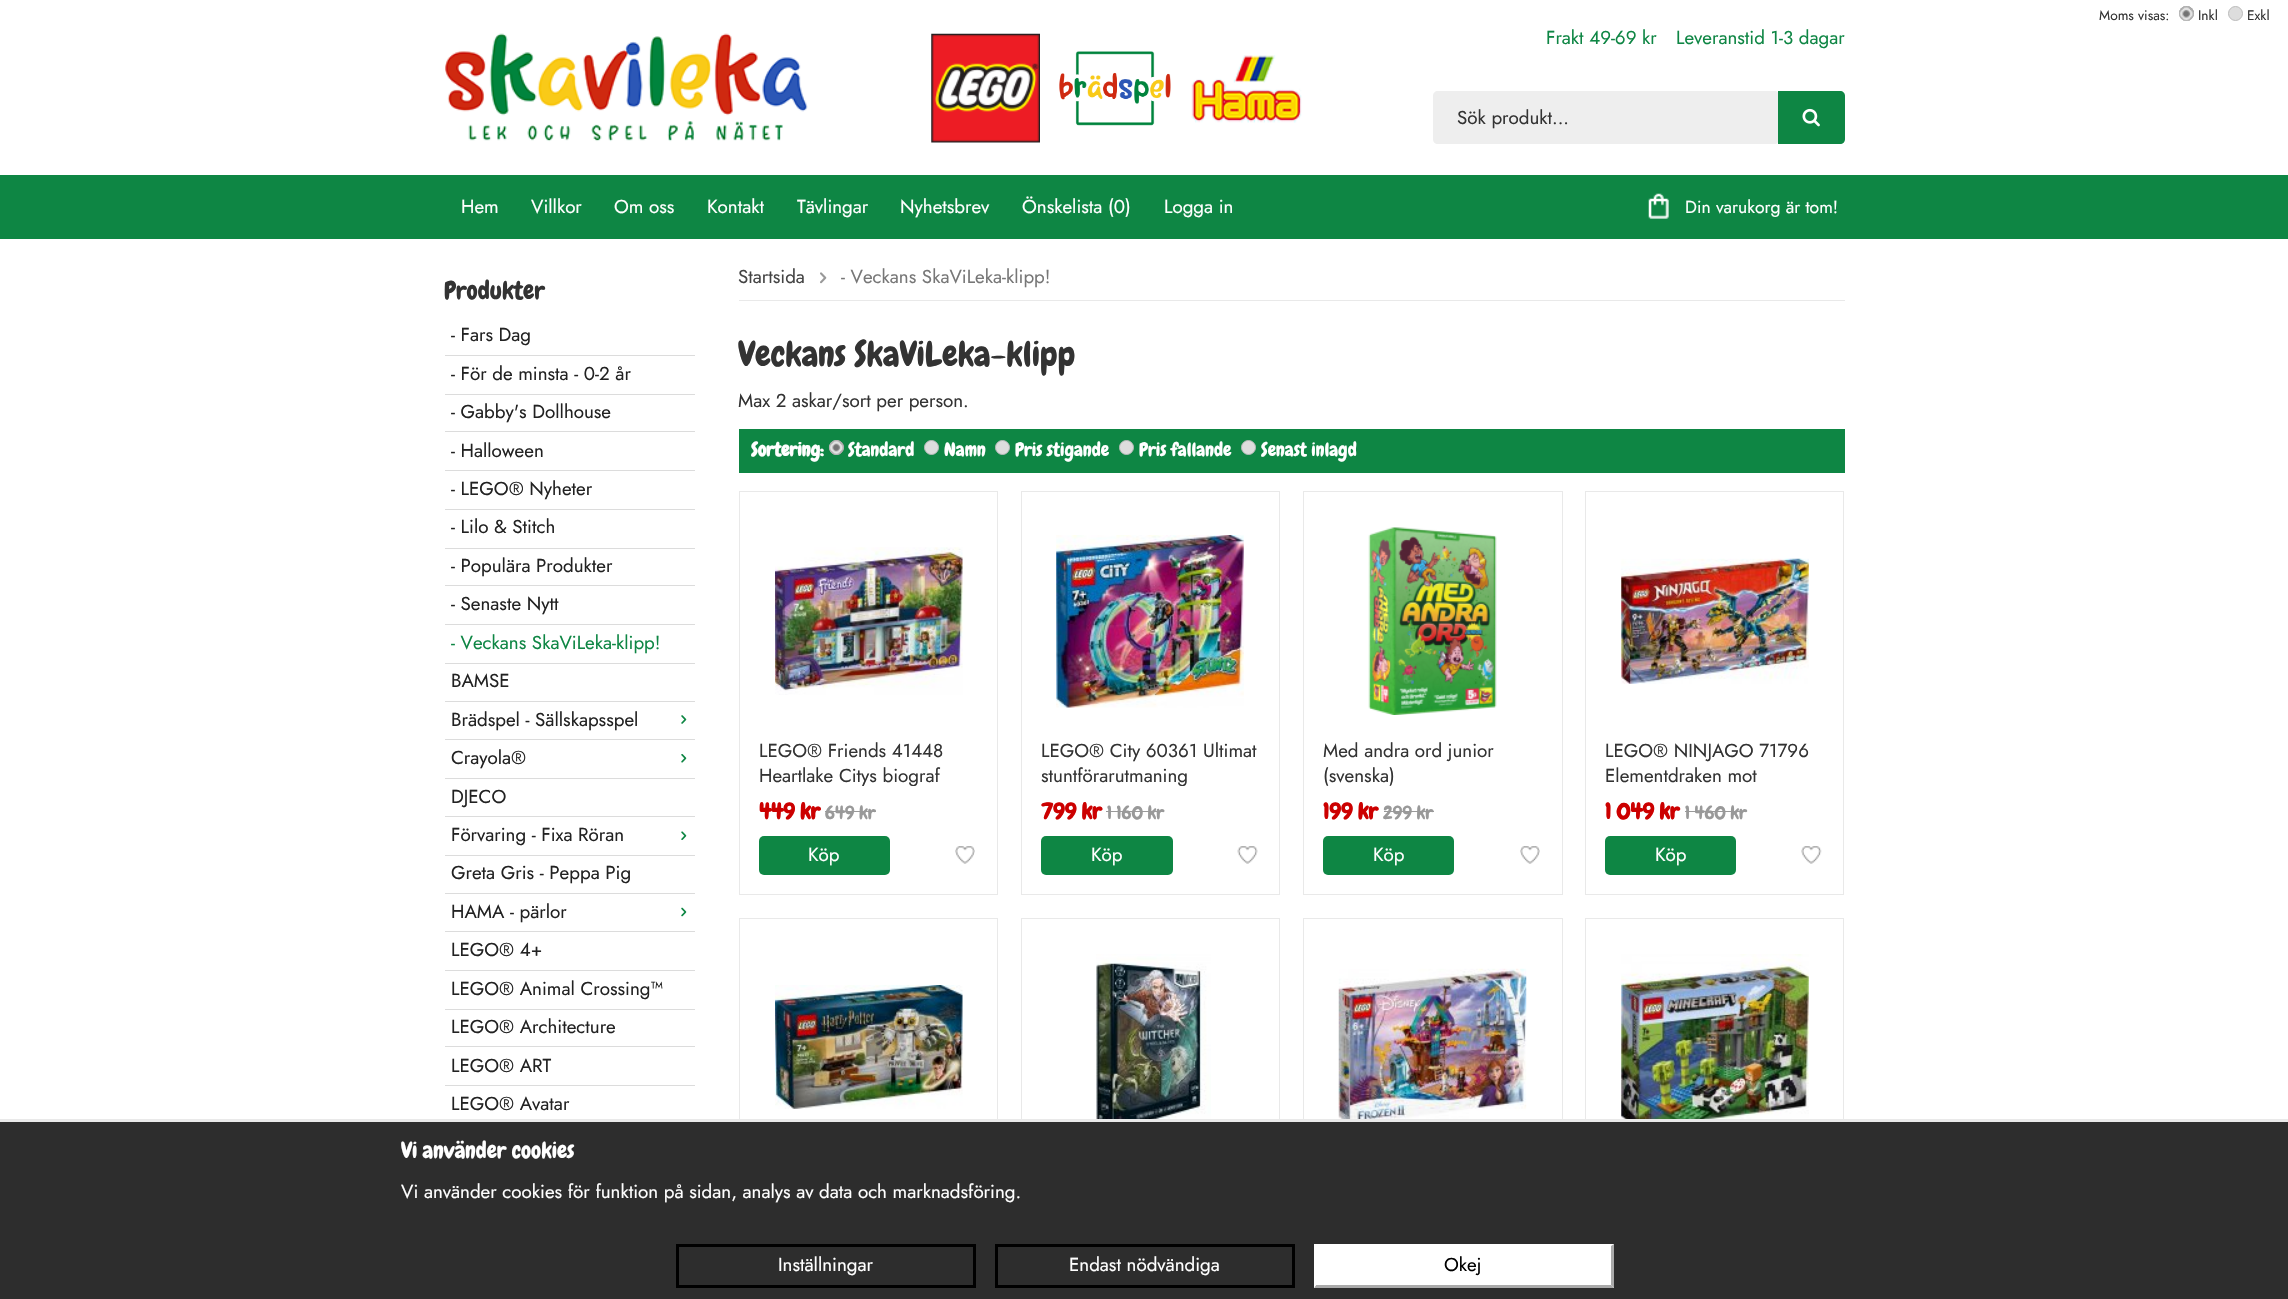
#include "include/core/SkBlurTypes.h"
#include "include/core/SkCanvas.h"
#include "include/core/SkData.h"
#include "include/core/SkFont.h"
#include "include/core/SkFontMgr.h"
#include "include/core/SkImage.h"
#include "include/core/SkMaskFilter.h"
#include "include/core/SkPaint.h"
#include "include/core/SkPathBuilder.h"
#include "include/core/SkTextBlob.h"
#include "include/effects/SkDashPathEffect.h"
#include "include/effects/SkGradientShader.h"
#include "include/utils/SkParsePath.h"

extern sk_sp<SkFontMgr> fontMgr;

void draw(SkCanvas* canvas) {
    SkPaint p;
    p.setAntiAlias(true);
    auto font = [&](const char* family, int weight, float size, bool italic = false) {
        SkFontStyle style(weight, SkFontStyle::kNormal_Width,
            italic ? SkFontStyle::kItalic_Slant : SkFontStyle::kUpright_Slant);
        SkFont result(fontMgr->matchFamilyStyle(family, style), size);
        result.setSubpixel(true);
        return result;
    };
    auto drawPhoto = [&](const char* path, float l, float t, float r, float b) {
        auto image = SkImages::DeferredFromEncodedData(SkData::MakeFromFileName(path));
        canvas->drawImageRect(image, SkRect::MakeLTRB(l, t, r, b), SkSamplingOptions());
    };
    canvas->clear(0xFFFFFFFF);
    drawPhoto("media/1.png", 445, 33, 808, 142);
    drawPhoto("media/2.png", 931, 33, 1040, 143);
    drawPhoto("media/3.png", 1059, 51, 1171, 126);
    drawPhoto("media/4.png", 1191, 55, 1302, 123);
    auto font1 = font("Jost", 400, 13.75f);
    p.setColor(0xFF333333);
    canvas->drawString("Moms visas:", 2099, 20, font1, p);
    p.setColor(0xFF666666);
    canvas->drawCircle(2186.5f, 13.5f, 7.5f, p);
    drawPhoto("media/5.png", 2179, 6, 2194, 21);
    p.setStyle(SkPaint::kStroke_Style);
    p.setStrokeWidth(1);
    p.setColor(0xFFBBBBBB);
    canvas->drawCircle(2186.5f, 13.5f, 7, p);
    p.setStyle(SkPaint::kFill_Style);
    p.setColor(0xFF333333);
    canvas->drawString("Inkl", 2198, 20, font1, p);
    p.setColor(0xFFDDDDDD);
    canvas->drawCircle(2235.5f, 13.5f, 7, p);
    p.setStyle(SkPaint::kStroke_Style);
    p.setColor(0xFFBBBBBB);
    canvas->drawCircle(2235.5f, 13.5f, 7, p);
    p.setStyle(SkPaint::kFill_Style);
    p.setColor(0xFF333333);
    canvas->drawString("Exkl", 2247, 20, font1, p);
    auto font2 = font("Jost", 400, 18.75f);
    p.setColor(0xFF0E8644);
    canvas->drawString("Frakt 49-69 kr", 1546, 44, font2, p);
    canvas->drawString("Leveranstid 1-3 dagar", 1676, 44, font2, p);
    p.setColor(0xFFEEEEEE);
    canvas->drawPath(SkPathBuilder().moveTo(1438, 91).lineTo(1775.5f, 91).cubicTo(1777, 91, 1778, 92, 1778, 93.5f).lineTo(1778, 141.5f).cubicTo(1778, 143, 1777, 144, 1775.5f, 144).lineTo(1438, 144).cubicTo(1435, 144, 1433, 142, 1433, 139).lineTo(1433, 96).cubicTo(1433, 93, 1435, 91, 1438, 91).close().detach(), p);
    p.setColor(0xFF333333);
    canvas->drawString("Sök produkt...", 1457, 124, font2, p);
    p.setColor(0xFF0E8644);
    canvas->drawPath(SkPathBuilder().moveTo(1778, 91).lineTo(1840, 91).cubicTo(1843, 91, 1845, 93, 1845, 96).lineTo(1845, 139).cubicTo(1845, 142, 1843, 144, 1840, 144).lineTo(1778, 144).close().detach(), p);
    drawPhoto("media/6.png", 1802, 108, 1820, 127);
    canvas->drawRect(SkRect::MakeLTRB(0, 175, 2288, 239), p);
    p.setColor(0xFFFFFFFF);
    {
        const struct { const char* s; float x, y; } items[] = {
            {"Hem", 461, 213},
            {"Villkor", 531, 213},
            {"Om oss", 614, 213},
            {"Kontakt", 707, 213},
            {"Tävlingar", 797, 213},
            {"Nyhetsbrev", 900, 213},
            {"Önskelista (0)", 1022, 213},
            {"Logga in", 1164, 213},
        };
        for (auto [s, x, y] : items) {
            canvas->drawString(s, x, y, font2, p);
        }
    }
    drawPhoto("media/7.png", 1648, 193, 1669, 219);
    auto font3 = font("Jost", 400, 17.5f);
    canvas->drawString("Din varukorg är tom!", 1685, 213, font3, p);
    auto font4 = font("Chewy", 400, 25);
    p.setColor(0xFF333333);
    canvas->drawString("Produkter", 444, 299, font4, p);
    p.setColor(0xFFDCDCDC);
    canvas->drawRect(SkRect::MakeLTRB(445, 355, 695, 356), p);
    p.setColor(0xFF222222);
    canvas->drawString("- Fars Dag", 451, 341, font2, p);
    p.setColor(0xFFDCDCDC);
    canvas->drawRect(SkRect::MakeLTRB(445, 394, 695, 395), p);
    p.setColor(0xFF222222);
    canvas->drawString("- För de minsta - 0-2 år", 451, 380, font2, p);
    p.setColor(0xFFDCDCDC);
    canvas->drawRect(SkRect::MakeLTRB(445, 431, 695, 432), p);
    p.setColor(0xFF222222);
    canvas->drawString("- Gabby's Dollhouse", 451, 418, font2, p);
    p.setColor(0xFFDCDCDC);
    canvas->drawRect(SkRect::MakeLTRB(445, 470, 695, 471), p);
    p.setColor(0xFF222222);
    canvas->drawString("- Halloween", 451, 457, font2, p);
    p.setColor(0xFFDCDCDC);
    canvas->drawRect(SkRect::MakeLTRB(445, 509, 695, 510), p);
    p.setColor(0xFF222222);
    canvas->drawString("- LEGO® Nyheter", 451, 495, font2, p);
    p.setColor(0xFFDCDCDC);
    canvas->drawRect(SkRect::MakeLTRB(445, 548, 695, 549), p);
    p.setColor(0xFF222222);
    canvas->drawString("- Lilo & Stitch", 451, 533, font2, p);
    p.setColor(0xFFDCDCDC);
    canvas->drawRect(SkRect::MakeLTRB(445, 585, 695, 586), p);
    p.setColor(0xFF222222);
    canvas->drawString("- Populära Produkter", 451, 572, font2, p);
    p.setColor(0xFFDCDCDC);
    canvas->drawRect(SkRect::MakeLTRB(445, 624, 695, 625), p);
    p.setColor(0xFF222222);
    canvas->drawString("- Senaste Nytt", 451, 610, font2, p);
    p.setColor(0xFFDCDCDC);
    canvas->drawRect(SkRect::MakeLTRB(445, 663, 695, 664), p);
    p.setColor(0xFF0E8644);
    canvas->drawString("- Veckans SkaViLeka-klipp!", 451, 649, font2, p);
    p.setColor(0xFFDCDCDC);
    canvas->drawRect(SkRect::MakeLTRB(445, 701, 695, 702), p);
    p.setColor(0xFF222222);
    canvas->drawString("BAMSE", 451, 687, font2, p);
    p.setColor(0xFFDCDCDC);
    canvas->drawRect(SkRect::MakeLTRB(445, 739, 695, 740), p);
    p.setColor(0xFF222222);
    canvas->drawString("Brädspel - Sällskapsspel", 451, 726, font2, p);
    drawPhoto("media/8.png", 681, 715, 687, 724);
    p.setColor(0xFFDCDCDC);
    canvas->drawRect(SkRect::MakeLTRB(445, 778, 695, 779), p);
    p.setColor(0xFF222222);
    canvas->drawString("Crayola®", 451, 764, font2, p);
    drawPhoto("media/9.png", 681, 754, 687, 763);
    p.setColor(0xFFDCDCDC);
    canvas->drawRect(SkRect::MakeLTRB(445, 816, 695, 817), p);
    p.setColor(0xFF222222);
    canvas->drawString("DJECO", 451, 803, font2, p);
    p.setColor(0xFFDCDCDC);
    canvas->drawRect(SkRect::MakeLTRB(445, 855, 695, 856), p);
    p.setColor(0xFF222222);
    canvas->drawString("Förvaring - Fixa Röran", 451, 841, font2, p);
    drawPhoto("media/10.png", 681, 831, 687, 840);
    p.setColor(0xFFDCDCDC);
    canvas->drawRect(SkRect::MakeLTRB(445, 893, 695, 894), p);
    p.setColor(0xFF222222);
    canvas->drawString("Greta Gris - Peppa Pig", 451, 879, font2, p);
    p.setColor(0xFFDCDCDC);
    canvas->drawRect(SkRect::MakeLTRB(445, 931, 695, 932), p);
    p.setColor(0xFF222222);
    canvas->drawString("HAMA - pärlor", 451, 918, font2, p);
    drawPhoto("media/11.png", 681, 907, 687, 917);
    p.setColor(0xFFDCDCDC);
    canvas->drawRect(SkRect::MakeLTRB(445, 970, 695, 971), p);
    p.setColor(0xFF222222);
    canvas->drawString("LEGO® 4+", 451, 956, font2, p);
    p.setColor(0xFFDCDCDC);
    canvas->drawRect(SkRect::MakeLTRB(445, 1009, 695, 1010), p);
    p.setColor(0xFF222222);
    canvas->drawString("LEGO® Animal Crossing™", 451, 995, font2, p);
    p.setColor(0xFFDCDCDC);
    canvas->drawRect(SkRect::MakeLTRB(445, 1046, 695, 1047), p);
    p.setColor(0xFF222222);
    canvas->drawString("LEGO® Architecture", 451, 1033, font2, p);
    p.setColor(0xFFDCDCDC);
    canvas->drawRect(SkRect::MakeLTRB(445, 1085, 695, 1086), p);
    p.setColor(0xFF222222);
    canvas->drawString("LEGO® ART", 451, 1072, font2, p);
    canvas->drawString("LEGO® Avatar", 451, 1110, font2, p);
    p.setColor(0xFFE9E9E9);
    canvas->drawRect(SkRect::MakeLTRB(739, 300, 1845, 301), p);
    p.setColor(0xFF444444);
    canvas->drawString("Startsida", 738, 283, font2, p);
    drawPhoto("media/12.png", 820, 272, 827, 284);
    p.setColor(0xFF777777);
    canvas->drawString("- Veckans SkaViLeka-klipp!", 841, 283, font2, p);
    auto font5 = font("Chewy", 400, 35);
    p.setColor(0xFF333333);
    canvas->drawString("Veckans SkaViLeka-klipp", 738, 366, font5, p);
    canvas->drawString("Max 2 askar/sort per person.", 738, 407, font2, p);
    p.setColor(0xFF0E8644);
    canvas->drawRect(SkRect::MakeLTRB(739, 429, 1845, 473), p);
    auto font6 = font("Chewy", 700, 18.75f);
    p.setColor(0xFFFFFFFF);
    canvas->drawString("Sortering:", 751, 456, font6, p);
    p.setColor(0xFF666666);
    canvas->drawCircle(836.5f, 447.5f, 7.5f, p);
    drawPhoto("media/13.png", 828, 440, 844, 455);
    p.setStyle(SkPaint::kStroke_Style);
    p.setColor(0xFFBBBBBB);
    canvas->drawCircle(836.5f, 447.5f, 7, p);
    auto font7 = font("Chewy", 400, 18.75f);
    p.setStyle(SkPaint::kFill_Style);
    p.setColor(0xFFFFFFFF);
    canvas->drawString("Standard", 848, 456, font7, p);
    p.setColor(0xFFDDDDDD);
    canvas->drawCircle(931.5f, 447.5f, 7, p);
    p.setStyle(SkPaint::kStroke_Style);
    p.setColor(0xFFBBBBBB);
    canvas->drawCircle(931.5f, 447.5f, 7, p);
    p.setStyle(SkPaint::kFill_Style);
    p.setColor(0xFFFFFFFF);
    canvas->drawString("Namn", 944, 456, font7, p);
    p.setColor(0xFFDDDDDD);
    canvas->drawCircle(1002.5f, 447.5f, 7, p);
    p.setStyle(SkPaint::kStroke_Style);
    p.setColor(0xFFBBBBBB);
    canvas->drawCircle(1002.5f, 447.5f, 7, p);
    p.setStyle(SkPaint::kFill_Style);
    p.setColor(0xFFFFFFFF);
    canvas->drawString("Pris stigande", 1015, 456, font7, p);
    p.setColor(0xFFDDDDDD);
    canvas->drawCircle(1126.5f, 447.5f, 7, p);
    p.setStyle(SkPaint::kStroke_Style);
    p.setColor(0xFFBBBBBB);
    canvas->drawCircle(1126.5f, 447.5f, 7, p);
    p.setStyle(SkPaint::kFill_Style);
    p.setColor(0xFFFFFFFF);
    canvas->drawString("Pris fallande", 1139, 456, font7, p);
    p.setColor(0xFFDDDDDD);
    canvas->drawCircle(1248.5f, 447.5f, 7, p);
    p.setStyle(SkPaint::kStroke_Style);
    p.setColor(0xFFBBBBBB);
    canvas->drawCircle(1248.5f, 447.5f, 7, p);
    p.setStyle(SkPaint::kFill_Style);
    p.setColor(0xFFFFFFFF);
    canvas->drawString("Senast inlagd", 1261, 456, font7, p);
    p.setStyle(SkPaint::kStroke_Style);
    p.setColor(0xFFE9E9E9);
    canvas->drawRect(SkRect::MakeLTRB(739.5f, 491.5f, 997.5f, 894.5f), p);
    drawPhoto("media/14.png", 775, 547, 963, 695);
    p.setStyle(SkPaint::kFill_Style);
    p.setColor(0xFF333333);
    canvas->drawString("LEGO® Friends 41448", 759, 757, font2, p);
    canvas->save();
    canvas->clipRect(SkRect::MakeLTRB(759, 740, 978, 786));
    canvas->drawString("Heartlake Citys biograf", 759, 782, font2, p);
    canvas->restore();
    auto font8 = font("Chewy", 700, 22.5f);
    p.setColor(0xFFCC0000);
    canvas->drawString("449 kr", 759, 819, font8, p);
    p.setColor(0xFF999999);
    canvas->drawString("649 kr", 825, 819, font7, p);
    canvas->drawRect(SkRect::MakeLTRB(825, 811, 876, 812), p);
    p.setColor(0xFF0E8644);
    canvas->drawRoundRect(SkRect::MakeLTRB(759, 836, 890, 875), 5, 5, p);
    p.setColor(0xFFFFFFFF);
    canvas->drawString("Köp", 808, 861, font2, p);
    drawPhoto("media/15.png", 955, 846, 975, 864);
    p.setStyle(SkPaint::kStroke_Style);
    p.setColor(0xFFE9E9E9);
    canvas->drawRect(SkRect::MakeLTRB(1021.5f, 491.5f, 1279.5f, 894.5f), p);
    drawPhoto("media/16.png", 1056, 535, 1244, 708);
    p.setStyle(SkPaint::kFill_Style);
    p.setColor(0xFF333333);
    canvas->drawString("LEGO® City 60361 Ultimat", 1041, 757, font2, p);
    canvas->save();
    canvas->clipRect(SkRect::MakeLTRB(1041, 740, 1260, 786));
    canvas->drawString("stuntförarutmaning", 1041, 782, font2, p);
    canvas->restore();
    p.setColor(0xFFCC0000);
    canvas->drawString("799 kr", 1041, 819, font8, p);
    p.setColor(0xFF999999);
    canvas->drawString("1 160 kr", 1107, 819, font7, p);
    canvas->drawRect(SkRect::MakeLTRB(1106, 811, 1164, 812), p);
    p.setColor(0xFF0E8644);
    canvas->drawRoundRect(SkRect::MakeLTRB(1041, 836, 1173, 875), 5, 5, p);
    p.setColor(0xFFFFFFFF);
    canvas->drawString("Köp", 1091, 861, font2, p);
    drawPhoto("media/17.png", 1237, 846, 1258, 864);
    p.setStyle(SkPaint::kStroke_Style);
    p.setColor(0xFFE9E9E9);
    canvas->drawRect(SkRect::MakeLTRB(1303.5f, 491.5f, 1562.5f, 894.5f), p);
    drawPhoto("media/18.png", 1368, 527, 1497, 715);
    p.setStyle(SkPaint::kFill_Style);
    p.setColor(0xFF333333);
    canvas->drawString("Med andra ord junior", 1323, 757, font2, p);
    canvas->drawString("(svenska)", 1323, 782, font2, p);
    p.setColor(0xFFCC0000);
    canvas->drawString("199 kr", 1323, 819, font8, p);
    p.setColor(0xFF999999);
    canvas->drawString("299 kr", 1383, 819, font7, p);
    canvas->drawRect(SkRect::MakeLTRB(1384, 811, 1434, 812), p);
    p.setColor(0xFF0E8644);
    canvas->drawRoundRect(SkRect::MakeLTRB(1323, 836, 1454, 875), 5, 5, p);
    p.setColor(0xFFFFFFFF);
    canvas->drawString("Köp", 1373, 861, font2, p);
    drawPhoto("media/19.png", 1520, 846, 1540, 864);
    p.setStyle(SkPaint::kStroke_Style);
    p.setColor(0xFFE9E9E9);
    canvas->drawRect(SkRect::MakeLTRB(1585.5f, 491.5f, 1843.5f, 894.5f), p);
    drawPhoto("media/20.png", 1621, 558, 1809, 684);
    p.setStyle(SkPaint::kFill_Style);
    p.setColor(0xFF333333);
    canvas->drawString("LEGO® NINJAGO 71796", 1605, 757, font2, p);
    canvas->drawString("Elementdraken mot", 1605, 782, font2, p);
    p.setColor(0xFFCC0000);
    canvas->drawString("1 049 kr", 1605, 819, font8, p);
    p.setColor(0xFF999999);
    canvas->drawString("1 460 kr", 1685, 819, font7, p);
    canvas->drawRect(SkRect::MakeLTRB(1685, 811, 1746, 812), p);
    p.setColor(0xFF0E8644);
    canvas->drawRoundRect(SkRect::MakeLTRB(1605, 836, 1736, 875), 5, 5, p);
    p.setColor(0xFFFFFFFF);
    canvas->drawString("Köp", 1655, 861, font2, p);
    drawPhoto("media/21.png", 1801, 846, 1822, 864);
    p.setStyle(SkPaint::kStroke_Style);
    p.setColor(0xFFE9E9E9);
    canvas->drawRect(SkRect::MakeLTRB(739.5f, 918.5f, 997.5f, 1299.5f), p);
    drawPhoto("media/22.png", 775, 985, 963, 1109);
    canvas->drawRect(SkRect::MakeLTRB(1021.5f, 918.5f, 1279.5f, 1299.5f), p);
    drawPhoto("media/23.png", 1096, 954, 1211, 1119);
    canvas->drawRect(SkRect::MakeLTRB(1303.5f, 918.5f, 1562.5f, 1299.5f), p);
    drawPhoto("media/24.png", 1338, 968, 1527, 1119);
    canvas->drawRect(SkRect::MakeLTRB(1585.5f, 918.5f, 1843.5f, 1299.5f), p);
    drawPhoto("media/25.png", 1621, 954, 1809, 1119);
    p.setStyle(SkPaint::kFill_Style);
    p.setColor(0xFF2D2D2D);
    canvas->drawRect(SkRect::MakeLTRB(0, 1122, 2288, 1299), p);
    p.setColor(0xFFE9E9E9);
    canvas->drawRect(SkRect::MakeLTRB(0, 1119, 2288, 1122), p);
    auto font9 = font("Chewy", 400, 22.5f);
    p.setColor(0xFFFFFFFF);
    canvas->drawString("Vi använder cookies", 401, 1158, font9, p);
    canvas->drawString("Vi använder cookies för funktion på sidan, analys av data och marknadsföring.", 401, 1198, font2, p);
    p.setStyle(SkPaint::kStroke_Style);
    p.setStrokeWidth(3);
    p.setColor(0xFF000000);
    canvas->drawRect(SkRect::MakeLTRB(677.5f, 1245.5f, 974.5f, 1286.5f), p);
    p.setStyle(SkPaint::kFill_Style);
    p.setColor(0xFFFFFFFF);
    canvas->drawString("Inställningar", 778, 1271, font2, p);
    p.setStyle(SkPaint::kStroke_Style);
    p.setColor(0xFF000000);
    canvas->drawRect(SkRect::MakeLTRB(996.5f, 1245.5f, 1293.5f, 1286.5f), p);
    p.setStyle(SkPaint::kFill_Style);
    p.setColor(0xFFFFFFFF);
    canvas->drawString("Endast nödvändiga", 1069, 1271, font2, p);
    canvas->drawRect(SkRect::MakeLTRB(1314, 1244, 1614, 1288), p);
    p.setColor(0xFFAAAAAA);
    canvas->drawPath(SkPathBuilder().moveTo(1614, 1244).lineTo(1614, 1288).lineTo(1611, 1285).lineTo(1611, 1246).close().detach(), p);
    canvas->drawPath(SkPathBuilder().moveTo(1614, 1288).lineTo(1314, 1288).lineTo(1316, 1285).lineTo(1611, 1285).close().detach(), p);
    p.setColor(0xFFFFFFFF);
    canvas->drawPath(SkPathBuilder().moveTo(1314, 1288).lineTo(1314, 1244).lineTo(1316, 1246).lineTo(1316, 1285).close().detach(), p);
    p.setColor(0xFF000000);
    canvas->drawString("Okej", 1444, 1271, font2, p);
}
